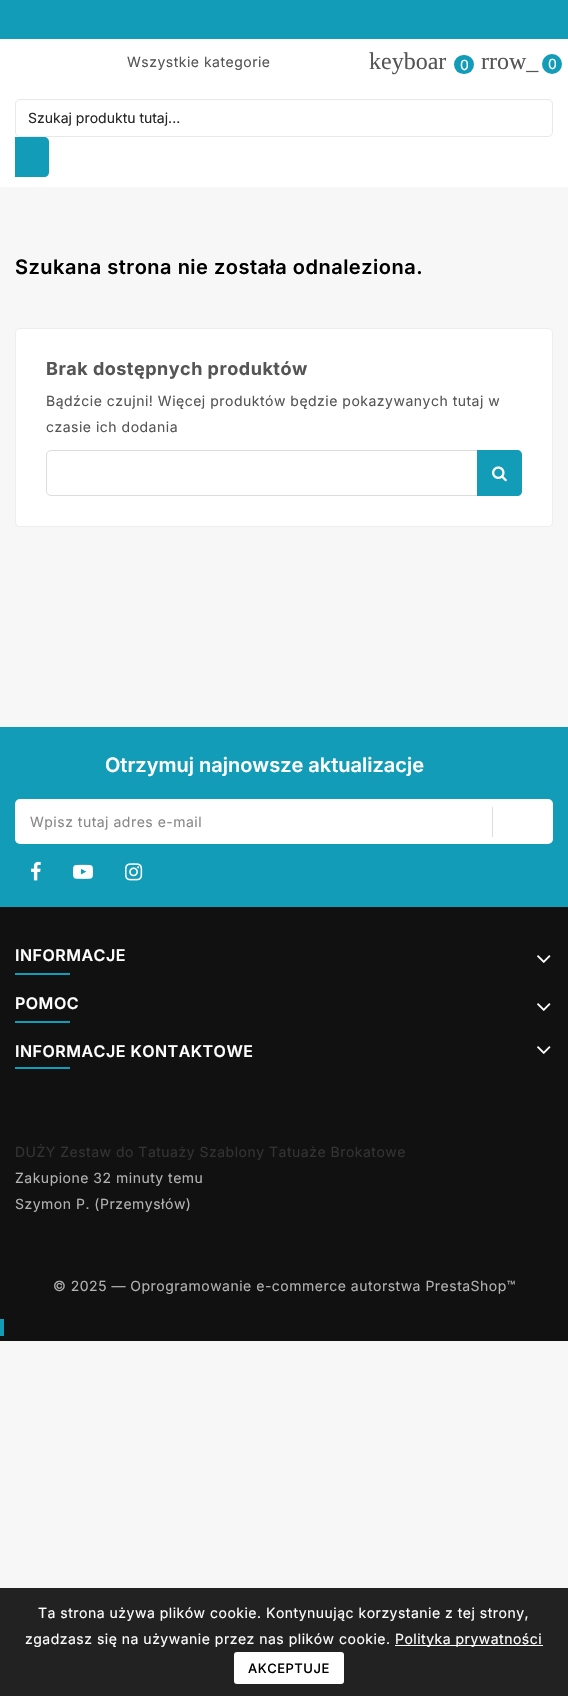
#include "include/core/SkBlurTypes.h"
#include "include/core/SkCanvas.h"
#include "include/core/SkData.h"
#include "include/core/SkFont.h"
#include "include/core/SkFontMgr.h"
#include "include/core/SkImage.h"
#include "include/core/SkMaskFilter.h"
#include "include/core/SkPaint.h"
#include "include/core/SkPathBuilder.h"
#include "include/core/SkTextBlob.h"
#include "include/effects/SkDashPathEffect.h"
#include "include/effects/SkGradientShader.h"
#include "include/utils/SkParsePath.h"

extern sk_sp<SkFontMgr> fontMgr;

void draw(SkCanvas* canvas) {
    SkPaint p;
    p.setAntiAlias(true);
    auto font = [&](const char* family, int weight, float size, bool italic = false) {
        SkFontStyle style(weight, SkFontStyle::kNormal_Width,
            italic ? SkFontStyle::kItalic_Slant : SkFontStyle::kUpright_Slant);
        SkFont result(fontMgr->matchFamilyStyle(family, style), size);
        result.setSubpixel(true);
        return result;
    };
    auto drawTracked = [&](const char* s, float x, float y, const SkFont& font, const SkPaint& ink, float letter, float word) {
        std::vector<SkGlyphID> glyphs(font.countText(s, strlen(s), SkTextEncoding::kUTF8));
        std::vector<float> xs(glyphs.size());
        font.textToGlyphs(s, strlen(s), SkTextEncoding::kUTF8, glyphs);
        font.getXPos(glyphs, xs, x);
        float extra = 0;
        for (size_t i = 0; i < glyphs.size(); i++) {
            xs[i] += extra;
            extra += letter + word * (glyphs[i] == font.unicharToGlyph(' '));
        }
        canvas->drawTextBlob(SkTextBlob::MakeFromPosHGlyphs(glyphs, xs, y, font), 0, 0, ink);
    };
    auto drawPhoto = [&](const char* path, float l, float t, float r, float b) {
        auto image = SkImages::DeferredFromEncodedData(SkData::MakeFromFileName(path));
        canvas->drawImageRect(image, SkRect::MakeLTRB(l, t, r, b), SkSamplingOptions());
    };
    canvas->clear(0xFFF7F7F7);
    p.setColor(0xFFFFFFFF);
    canvas->drawRect(SkRect::MakeLTRB(0, 39, 568, 187), p);
    p.setColor(0xFF129CB8);
    canvas->drawRect(SkRect::MakeLTRB(0, 0, 568, 39), p);
    auto font1 = font("Inter", 400, 14);
    p.setColor(0xFF555555);
    drawTracked("Wszystkie kategorie", 127, 67, font1, p, 0.5f, 0);
    auto font2 = font("Liberation Serif", 400, 24);
    canvas->drawString("keyboar", 369, 69, font2, p);
    canvas->drawString("rrow_", 481, 69, font2, p);
    p.setStyle(SkPaint::kStroke_Style);
    p.setStrokeWidth(1);
    p.setColor(0xFFE8E8E8);
    canvas->drawRoundRect(SkRect::MakeLTRB(15.5f, 99.5f, 552.5f, 136.5f), 4.5f, 4.5f, p);
    p.setStyle(SkPaint::kFill_Style);
    p.setColor(0xFF262626);
    canvas->drawString("Szukaj produktu tutaj...", 28, 123, font1, p);
    p.setColor(0xFF129CB8);
    canvas->drawPath(SkPathBuilder().moveTo(15, 137).lineTo(44, 137).cubicTo(47, 137, 49, 139, 49, 142).lineTo(49, 172).cubicTo(49, 175, 47, 177, 44, 177).lineTo(15, 177).close().detach(), p);
    canvas->drawCircle(552, 64, 10, p);
    p.setColor(0xFFFFFFFF);
    canvas->drawString("0", 548, 69, font1, p);
    p.setColor(0xFF129CB8);
    canvas->drawRoundRect(SkRect::MakeLTRB(454, 55, 474, 74), 9.5f, 9.5f, p);
    p.setColor(0xFFFFFFFF);
    canvas->drawString("0", 460, 70, font1, p);
    auto font3 = font("Inter", 600, 20);
    p.setColor(0xFF000000);
    drawTracked("Szukana strona nie została odnaleziona.", 15, 274, font3, p, 0.5f, 0);
    p.setColor(0xFFFFFFFF);
    canvas->drawRoundRect(SkRect::MakeLTRB(15.5f, 328.5f, 552.5f, 526.5f), 4.5f, 4.5f, p);
    p.setStyle(SkPaint::kStroke_Style);
    p.setColor(0xFFEDEDED);
    canvas->drawRoundRect(SkRect::MakeLTRB(15.5f, 328.5f, 552.5f, 526.5f), 4.5f, 4.5f, p);
    auto font4 = font("Inter", 700, 18);
    p.setStyle(SkPaint::kFill_Style);
    p.setColor(0xFF555555);
    drawTracked("Brak dostępnych produktów", 46, 375, font4, p, 0.5f, 0);
    drawTracked("Bądźcie czujni! Więcej produktów będzie pokazywanych tutaj w", 46, 406, font1, p, 0.5f, 0);
    drawTracked("czasie ich dodania", 46, 432, font1, p, 0.5f, 0);
    p.setStyle(SkPaint::kStroke_Style);
    p.setColor(0xFFDDDDDD);
    canvas->drawRoundRect(SkRect::MakeLTRB(46.5f, 450.5f, 521.5f, 495.5f), 4.5f, 4.5f, p);
    p.setStyle(SkPaint::kFill_Style);
    p.setColor(0xFF129CB8);
    canvas->drawPath(SkPathBuilder().moveTo(477, 450).lineTo(517, 450).cubicTo(520, 450, 522, 452, 522, 455).lineTo(522, 491).cubicTo(522, 494, 520, 496, 517, 496).lineTo(477, 496).close().detach(), p);
    drawPhoto("media/1.png", 492, 466, 507, 482);
    p.setColor(0xFF111111);
    canvas->drawRect(SkRect::MakeLTRB(0, 907, 568, 1341), p);
    p.setColor(0xFF129CB8);
    canvas->drawRect(SkRect::MakeLTRB(0, 727, 568, 907), p);
    p.setColor(0xFFFFFFFF);
    canvas->drawString("Otrzymuj najnowsze aktualizacje", 105, 772, font3, p);
    canvas->drawRoundRect(SkRect::MakeLTRB(15, 799, 553, 844), 5, 5, p);
    p.setColor(0xFF888888);
    drawTracked("Wpisz tutaj adres e-mail", 30, 827, font1, p, 0.5f, 0);
    p.setColor(0xFFDDDDDD);
    canvas->drawRect(SkRect::MakeLTRB(492, 807, 493, 837), p);
    drawPhoto("media/2.png", 31, 861, 41, 881);
    drawPhoto("media/3.png", 73, 864, 93, 879);
    drawPhoto("media/4.png", 125, 863, 143, 881);
    auto font5 = font("Inter", 600, 16);
    p.setColor(0xFFFFFFFF);
    drawTracked("INFORMACJE", 15, 961, font5, p, 0.5f, 0);
    drawPhoto("media/5.png", 537, 955, 551, 963);
    p.setColor(0xFF129CB8);
    canvas->drawRect(SkRect::MakeLTRB(15, 973, 70, 975), p);
    p.setColor(0xFFFFFFFF);
    drawTracked("POMOC", 15, 1009, font5, p, 0.5f, 0);
    drawPhoto("media/5.png", 537, 1003, 551, 1011);
    p.setColor(0xFF129CB8);
    canvas->drawRect(SkRect::MakeLTRB(15, 1021, 70, 1023), p);
    p.setColor(0xFFFFFFFF);
    drawTracked("INFORMACJE KONTAKTOWE", 15, 1057, font5, p, 0.5f, 0);
    p.setColor(0xFF129CB8);
    canvas->drawRect(SkRect::MakeLTRB(15, 1067, 70, 1069), p);
    drawPhoto("media/5.png", 537, 1046, 551, 1054);
    p.setColor(0xFF333333);
    drawTracked("DUŻY Zestaw do Tatuaży Szablony Tatuaże Brokatowe", 15, 1157, font1, p, 0.5f, 0);
    p.setColor(0xFFB2B2B2);
    drawTracked("Zakupione 32 minuty temu", 15, 1183, font1, p, 0.5f, 0);
    drawTracked("Szymon P. (Przemysłów)", 15, 1209, font1, p, 0.5f, 0);
    p.setColor(0xFF222222);
    canvas->drawRect(SkRect::MakeLTRB(0, 1588, 568, 1696), p);
    p.setColor(0xFFFFFFFF);
    drawTracked("Ta strona używa plików cookie. Kontynuując korzystanie z tej strony,", 38, 1618, font1, p, 0.5f, 0);
    drawTracked("zgadzasz się na używanie przez nas plików cookie.", 25, 1644, font1, p, 0.5f, 0);
    canvas->drawRect(SkRect::MakeLTRB(395, 1645, 543, 1646), p);
    drawTracked("Polityka prywatności", 395, 1644, font1, p, 0.5f, 0);
    canvas->drawRoundRect(SkRect::MakeLTRB(234, 1652, 344, 1684), 3, 3, p);
    auto font6 = font("Inter", 500, 13);
    p.setColor(0xFF000000);
    drawTracked("AKCEPTUJE", 248, 1673, font6, p, 0.5f, 0);
    p.setColor(0xFFB2B2B2);
    drawTracked("© 2025 — Oprogramowanie e-commerce autorstwa PrestaShop™", 53, 1291, font1, p, 0.5f, 0);
    p.setColor(0xFF129CB8);
    canvas->drawRect(SkRect::MakeLTRB(0, 1319, 4, 1336), p);
}
